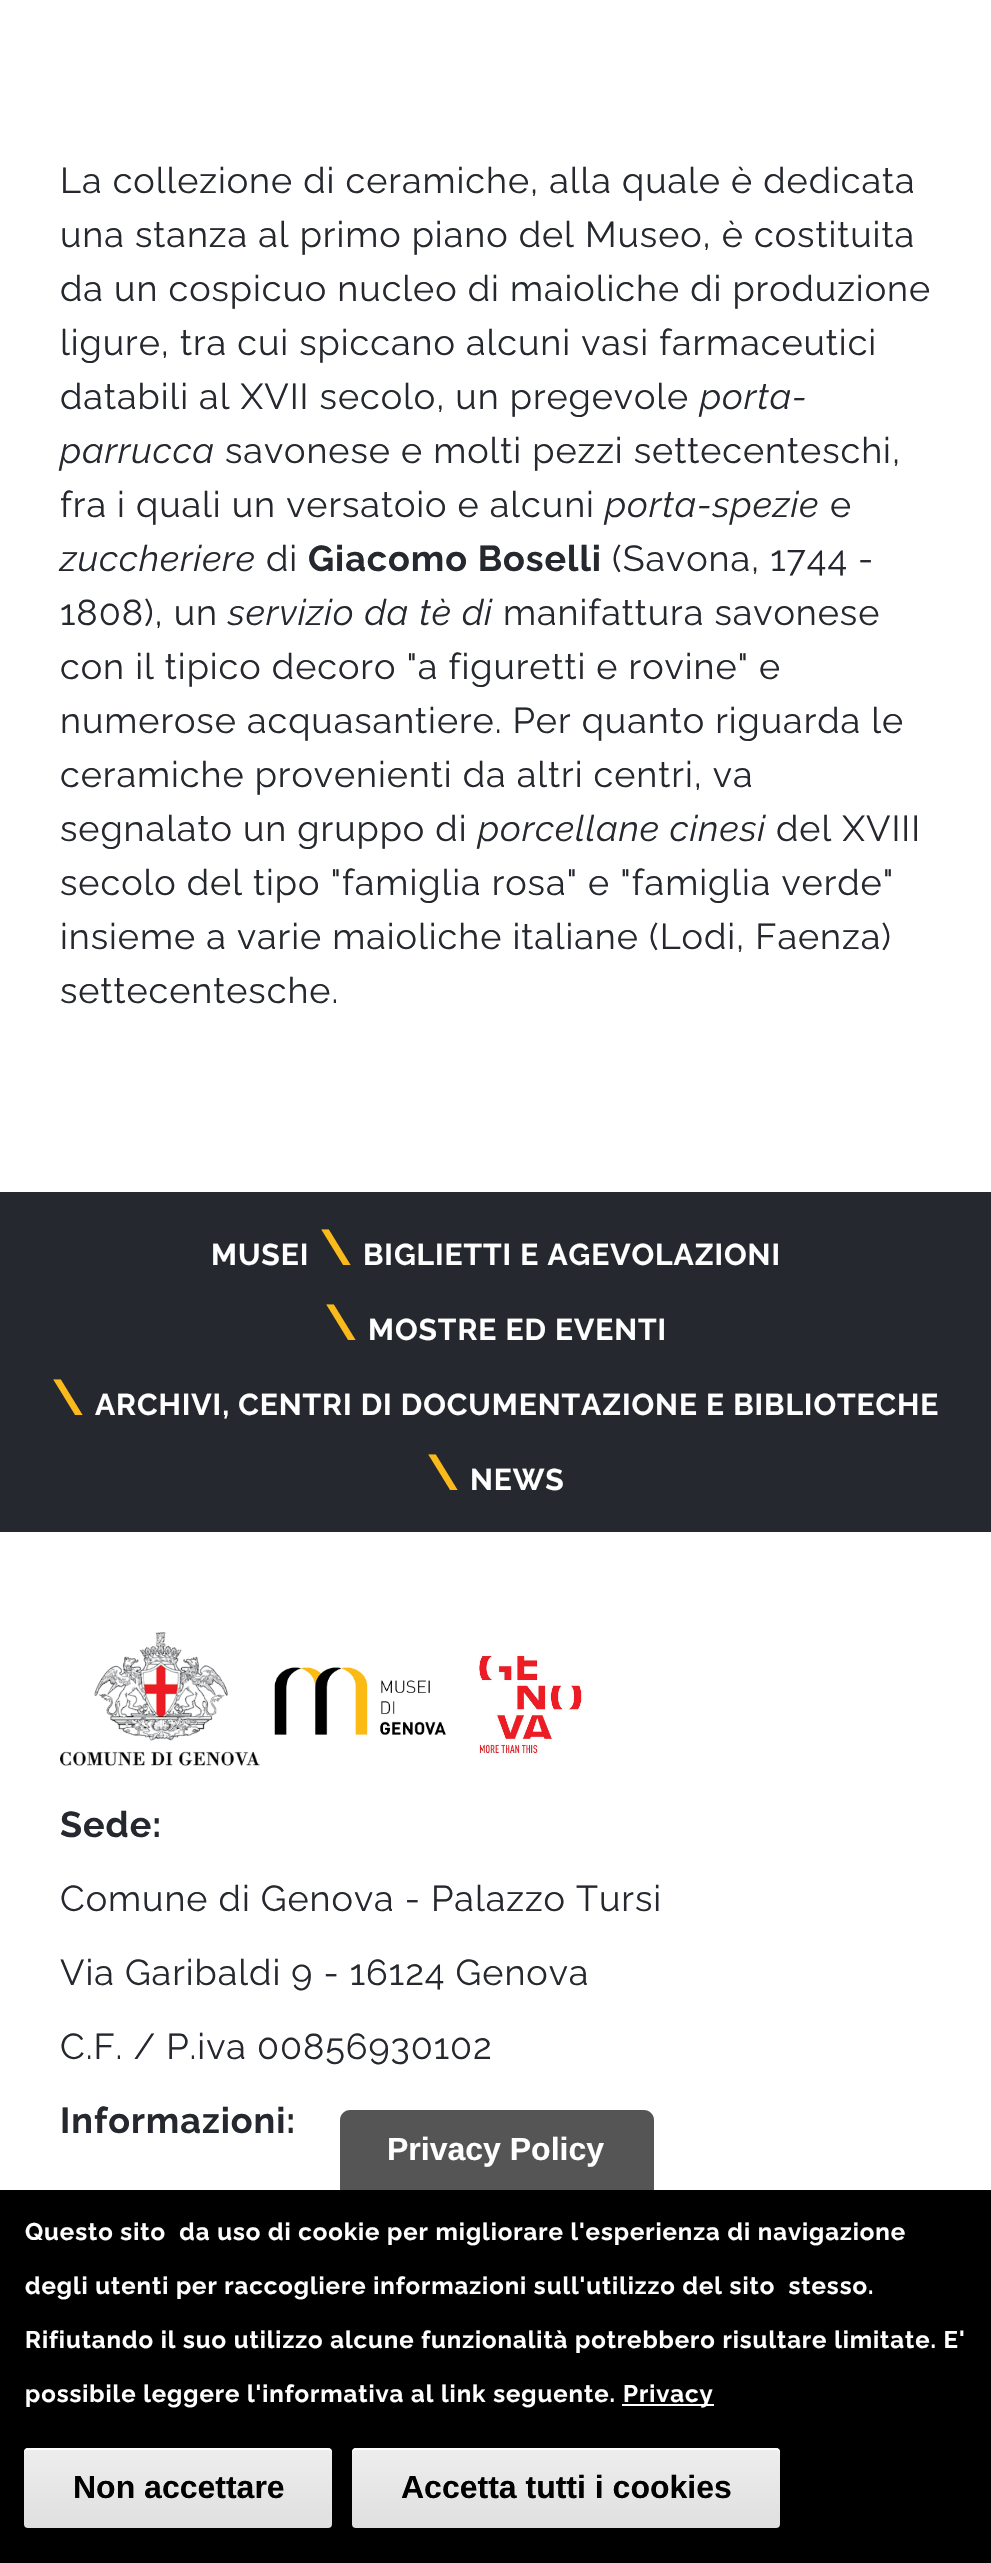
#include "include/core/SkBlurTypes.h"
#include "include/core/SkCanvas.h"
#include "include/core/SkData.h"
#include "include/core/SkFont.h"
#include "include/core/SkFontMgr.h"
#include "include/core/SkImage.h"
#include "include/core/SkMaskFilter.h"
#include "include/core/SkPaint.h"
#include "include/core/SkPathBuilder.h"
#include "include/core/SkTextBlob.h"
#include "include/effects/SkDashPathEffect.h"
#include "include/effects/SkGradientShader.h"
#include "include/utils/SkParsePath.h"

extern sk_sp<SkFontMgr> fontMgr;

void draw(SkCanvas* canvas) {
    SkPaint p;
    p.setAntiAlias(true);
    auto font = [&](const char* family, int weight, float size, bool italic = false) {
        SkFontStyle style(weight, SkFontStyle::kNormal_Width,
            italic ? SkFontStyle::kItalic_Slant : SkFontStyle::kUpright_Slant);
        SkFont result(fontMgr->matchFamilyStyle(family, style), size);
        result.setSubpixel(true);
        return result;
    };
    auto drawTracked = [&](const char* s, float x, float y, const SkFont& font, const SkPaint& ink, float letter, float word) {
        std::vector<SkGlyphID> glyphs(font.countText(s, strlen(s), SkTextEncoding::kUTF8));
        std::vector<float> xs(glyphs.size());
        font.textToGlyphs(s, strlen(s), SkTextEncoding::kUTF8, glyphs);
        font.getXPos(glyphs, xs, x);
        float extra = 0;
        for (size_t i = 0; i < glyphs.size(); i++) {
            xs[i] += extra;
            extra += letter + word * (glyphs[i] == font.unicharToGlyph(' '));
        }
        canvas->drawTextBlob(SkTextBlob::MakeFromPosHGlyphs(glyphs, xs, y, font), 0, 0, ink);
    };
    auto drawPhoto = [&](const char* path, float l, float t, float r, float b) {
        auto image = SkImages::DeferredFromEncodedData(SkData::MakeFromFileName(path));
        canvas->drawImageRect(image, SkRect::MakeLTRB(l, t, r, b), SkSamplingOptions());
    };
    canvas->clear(0xFFFFFFFF);
    auto font1 = font("Raleway", 400, 36);
    p.setColor(0xFF25282E);
    {
        const struct { const char* s; float x, y; } items[] = {
            {"La collezione di ceramiche, alla quale è dedicata", 60, 193},
            {"una stanza al primo piano del Museo, è costituita", 60, 247},
            {"da un cospicuo nucleo di maioliche di produzione", 60, 301},
            {"ligure, tra cui spiccano alcuni vasi farmaceutici", 60, 355},
            {"databili al XVII secolo, un pregevole", 60, 409},
        };
        for (auto [s, x, y] : items) {
            drawTracked(s, x, y, font1, p, 0.95f, 0);
        }
    }
    auto font2 = font("Raleway", 400, 36, true);
    drawTracked("porta-", 700, 409, font2, p, 0.95f, 0);
    drawTracked("parrucca", 60, 463, font2, p, 0.95f, 0);
    drawTracked("savonese e molti pezzi settecenteschi,", 225, 463, font1, p, 0.95f, 0);
    drawTracked("fra i quali un versatoio e alcuni", 60, 517, font1, p, 0.95f, 0);
    drawTracked("porta-spezie", 605, 517, font2, p, 0.95f, 0);
    drawTracked("e", 830, 517, font1, p, 0.95f, 0);
    drawTracked("zuccheriere", 60, 571, font2, p, 0.95f, 0);
    drawTracked("di", 266, 571, font1, p, 0.95f, 0);
    auto font3 = font("Raleway", 700, 36);
    drawTracked("Giacomo Boselli", 308, 571, font3, p, 0.95f, 0);
    drawTracked("(Savona, 1744 -", 612, 571, font1, p, 0.95f, 0);
    drawTracked("1808), un", 60, 625, font1, p, 0.95f, 0);
    drawTracked("servizio da tè di", 228, 625, font2, p, 0.95f, 0);
    {
        const struct { const char* s; float x, y; } items[] = {
            {"manifattura savonese", 503, 625},
            {"con il tipico decoro \"a figuretti e rovine\" e", 60, 679},
            {"numerose acquasantiere. Per quanto riguarda le", 60, 733},
            {"ceramiche provenienti da altri centri, va", 60, 787},
            {"segnalato un gruppo di", 60, 841},
        };
        for (auto [s, x, y] : items) {
            drawTracked(s, x, y, font1, p, 0.95f, 0);
        }
    }
    drawTracked("porcellane cinesi", 478, 841, font2, p, 0.95f, 0);
    {
        const struct { const char* s; float x, y; } items[] = {
            {"del XVIII", 776, 841},
            {"secolo del tipo \"famiglia rosa\" e \"famiglia verde\"", 60, 895},
            {"insieme a varie maioliche italiane (Lodi, Faenza)", 60, 949},
            {"settecentesche.", 60, 1003},
        };
        for (auto [s, x, y] : items) {
            drawTracked(s, x, y, font1, p, 0.95f, 0);
        }
    }
    canvas->drawRect(SkRect::MakeLTRB(0, 1192, 991, 1532), p);
    auto font4 = font("Raleway", 700, 30);
    p.setColor(0xFFFFFFFF);
    drawTracked("MUSEI", 211, 1265, font4, p, 0.95f, 0);
    auto font5 = font("Raleway", 700, 50);
    p.setColor(0xFFFBBA1C);
    drawTracked("\\", 320, 1265, font5, p, 0.95f, 0);
    p.setColor(0xFFFFFFFF);
    drawTracked("BIGLIETTI E AGEVOLAZIONI", 363, 1265, font4, p, 0.95f, 0);
    p.setColor(0xFFFBBA1C);
    drawTracked("\\", 325, 1340, font5, p, 0.95f, 0);
    p.setColor(0xFFFFFFFF);
    drawTracked("MOSTRE ED EVENTI", 368, 1340, font4, p, 0.95f, 0);
    p.setColor(0xFFFBBA1C);
    drawTracked("\\", 52, 1415, font5, p, 0.95f, 0);
    p.setColor(0xFFFFFFFF);
    drawTracked("ARCHIVI, CENTRI DI DOCUMENTAZIONE E BIBLIOTECHE", 95, 1415, font4, p, 0.95f, 0);
    p.setColor(0xFFFBBA1C);
    drawTracked("\\", 427, 1490, font5, p, 0.95f, 0);
    p.setColor(0xFFFFFFFF);
    drawTracked("NEWS", 470, 1490, font4, p, 0.95f, 0);
    drawPhoto("media/1.png", 60, 1632, 260, 1766);
    drawPhoto("media/2.png", 274, 1667, 446, 1735);
    drawPhoto("media/3.png", 476, 1654, 583, 1754);
    p.setColor(0xFF25282E);
    drawTracked("Sede:", 60, 1837, font3, p, 0.95f, 0);
    {
        const struct { const char* s; float x, y; } items[] = {
            {"Comune di Genova - Palazzo Tursi", 60, 1911},
            {"Via Garibaldi 9 - 16124 Genova", 60, 1985},
            {"C.F. / P.iva 00856930102", 60, 2059},
        };
        for (auto [s, x, y] : items) {
            drawTracked(s, x, y, font1, p, 0.95f, 0);
        }
    }
    drawTracked("Informazioni:", 60, 2133, font3, p, 0.95f, 0);
    p.setColor(0xFF000000);
    canvas->drawRect(SkRect::MakeLTRB(0, 2190, 991, 2563), p);
    p.setColor(0xFF555555);
    canvas->drawPath(SkPathBuilder().moveTo(350, 2110).lineTo(644, 2110).cubicTo(649.5f, 2110, 654, 2114.5f, 654, 2120).lineTo(654, 2190).lineTo(340, 2190).lineTo(340, 2120).cubicTo(340, 2114.5f, 344.5f, 2110, 350, 2110).close().detach(), p);
    auto font6 = font("Liberation Sans", 700, 32);
    p.setColor(0xFFFFFFFF);
    canvas->drawString("Privacy Policy", 387, 2160, font6, p);
    auto font7 = font("Raleway", 700, 24);
    {
        const struct { const char* s; float x, y; } items[] = {
            {"Questo sito  da uso di cookie per migliorare l'esperienza di navigazione", 25, 2240},
            {"degli utenti per raccogliere informazioni sull'utilizzo del sito  stesso.", 25, 2294},
            {"Rifiutando il suo utilizzo alcune funzionalità potrebbero risultare limitate. E'", 25, 2348},
            {"possibile leggere l'informativa al link seguente.", 25, 2402},
        };
        for (auto [s, x, y] : items) {
            drawTracked(s, x, y, font7, p, 0.95f, 0);
        }
    }
    canvas->drawRect(SkRect::MakeLTRB(622, 2404, 714, 2406), p);
    drawTracked("Privacy", 623, 2402, font7, p, 0.95f, 0);
    {
        const SkColor colors[] = {0xFFEDEDED, 0xFFDFDFDF};
        const float stops[] = {0.05f, 1};
        const SkPoint ends[] = {{178, 2448}, {178, 2528}};
        p.setShader(SkGradientShader::MakeLinear(ends, colors, stops, 2, SkTileMode::kClamp));
        p.setAlpha(255);
    }
    canvas->drawRoundRect(SkRect::MakeLTRB(24, 2448, 332, 2528), 4, 4, p);
    p.setShader(nullptr);
    p.setColor(0xFFFFFFFF);
    canvas->drawPath(SkPathBuilder().moveTo(28, 2450).lineTo(328, 2450).cubicTo(330, 2450, 332, 2452, 332, 2454).lineTo(332, 2452).cubicTo(332, 2450, 330, 2448, 328, 2448).lineTo(28, 2448).cubicTo(26, 2448, 24, 2450, 24, 2452).lineTo(24, 2454).cubicTo(24, 2452, 26, 2450, 28, 2450).close().detach(), p);
    p.setColor(0xFF000000);
    canvas->drawString("Non accettare", 73, 2498, font6, p);
    {
        const SkColor colors[] = {0xFFEDEDED, 0xFFDFDFDF};
        const float stops[] = {0.05f, 1};
        const SkPoint ends[] = {{566, 2448}, {566, 2528}};
        p.setShader(SkGradientShader::MakeLinear(ends, colors, stops, 2, SkTileMode::kClamp));
        p.setAlpha(255);
    }
    canvas->drawRoundRect(SkRect::MakeLTRB(352, 2448, 780, 2528), 4, 4, p);
    p.setShader(nullptr);
    p.setColor(0xFFFFFFFF);
    canvas->drawPath(SkPathBuilder().moveTo(356, 2450).lineTo(776, 2450).cubicTo(778, 2450, 780, 2452, 780, 2454).lineTo(780, 2452).cubicTo(780, 2450, 778, 2448, 776, 2448).lineTo(356, 2448).cubicTo(354, 2448, 352, 2450, 352, 2452).lineTo(352, 2454).cubicTo(352, 2452, 354, 2450, 356, 2450).close().detach(), p);
    p.setColor(0xFF000000);
    canvas->drawString("Accetta tutti i cookies", 401, 2498, font6, p);
}
